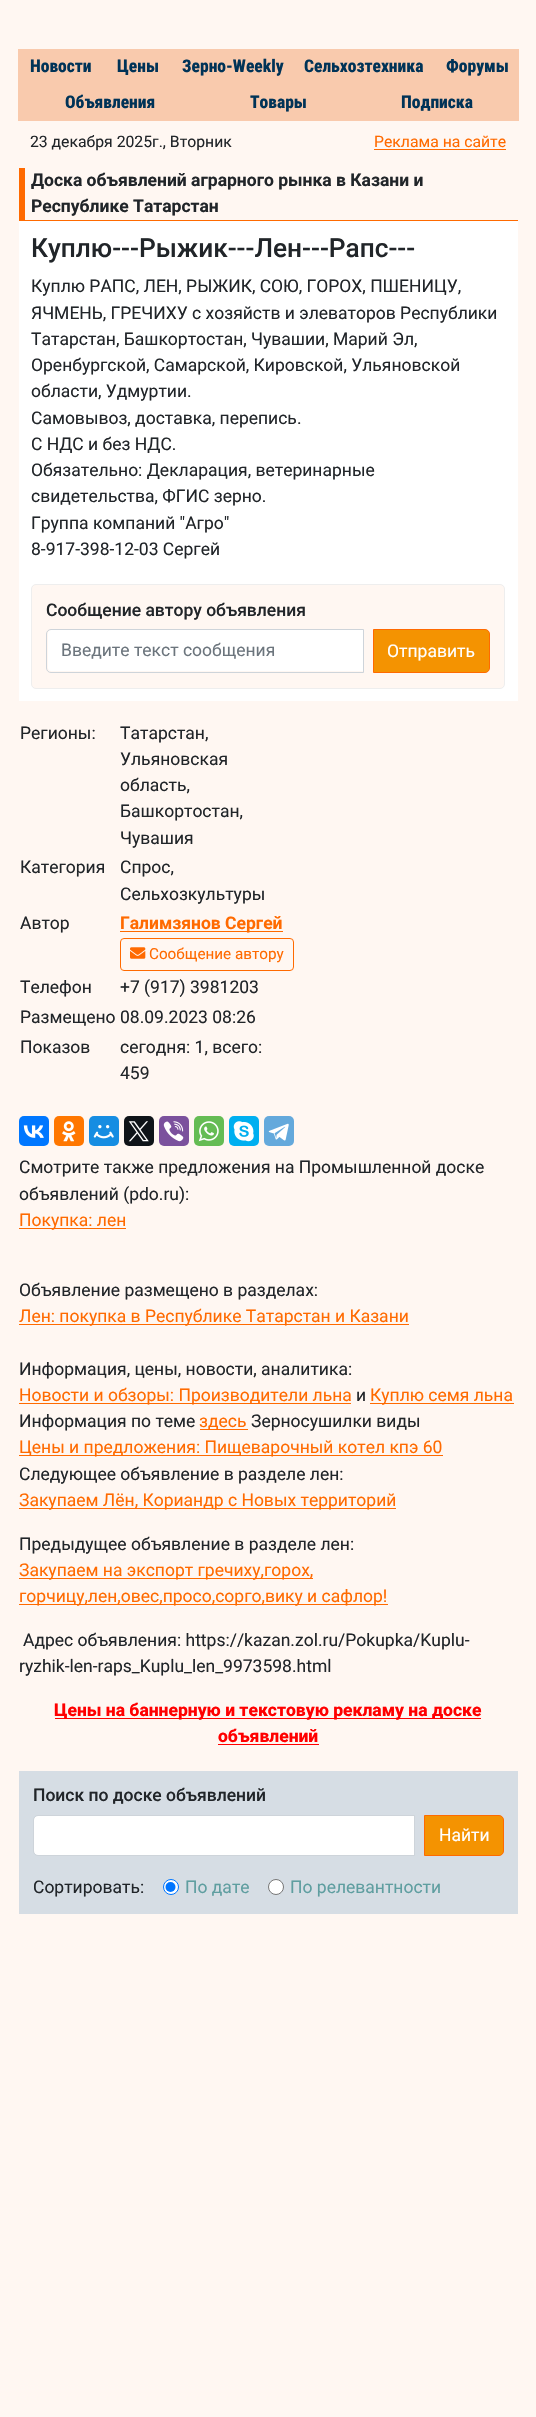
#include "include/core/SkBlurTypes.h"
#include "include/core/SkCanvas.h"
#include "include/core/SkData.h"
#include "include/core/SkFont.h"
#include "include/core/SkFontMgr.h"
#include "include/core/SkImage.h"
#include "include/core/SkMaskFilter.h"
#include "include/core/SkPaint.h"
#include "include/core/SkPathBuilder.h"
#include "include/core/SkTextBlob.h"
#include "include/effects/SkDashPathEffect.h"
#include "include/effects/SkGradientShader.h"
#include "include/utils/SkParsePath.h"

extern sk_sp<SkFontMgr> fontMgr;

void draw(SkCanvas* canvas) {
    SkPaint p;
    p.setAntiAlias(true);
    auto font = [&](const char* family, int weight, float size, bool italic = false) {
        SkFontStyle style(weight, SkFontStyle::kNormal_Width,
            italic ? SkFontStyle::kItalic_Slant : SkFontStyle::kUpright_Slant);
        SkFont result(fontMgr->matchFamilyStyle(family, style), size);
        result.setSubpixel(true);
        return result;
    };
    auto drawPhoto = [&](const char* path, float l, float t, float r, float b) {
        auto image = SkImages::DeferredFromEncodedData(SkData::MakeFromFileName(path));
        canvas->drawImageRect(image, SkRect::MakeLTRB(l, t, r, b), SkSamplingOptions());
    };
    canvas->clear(0xFFFFF7F2);
    p.setColor(0xFFF9CAAD);
    canvas->drawRect(SkRect::MakeLTRB(18, 49, 519, 121), p);
    auto font1 = font("Roboto Condensed", 800, 17.5f);
    p.setColor(0xFF003357);
    {
        const struct { const char* s; float x, y; } items[] = {
            {"Новости", 30, 72},
            {"Цены", 117, 72},
            {"Зерно-Weekly", 182, 72},
            {"Сельхозтехника", 304, 72},
            {"Форумы", 446, 72},
            {"Объявления", 65, 108},
            {"Товары", 250, 108},
            {"Подписка", 401, 108},
        };
        for (auto [s, x, y] : items) {
            canvas->drawString(s, x, y, font1, p);
        }
    }
    auto font2 = font("Roboto", 400, 15.75f);
    p.setColor(0xFF212529);
    canvas->drawString("23 декабря 2025г., Вторник", 30, 147, font2, p);
    p.setColor(0xFFFF6A00);
    canvas->drawString("Реклама на сайте", 374, 147, font2, p);
    {
        const struct { float l, t, r, b; SkColor color; } items[] = {
            {374, 149, 506, 150, 0xFFFF6A00},
            {19, 220, 518, 221, 0xFFFF6A00},
            {19, 168, 25, 221, 0xFFFF6A00},
        };
        for (auto [l, t, r, b, color] : items) {
            p.setColor(color);
            canvas->drawRect(SkRect::MakeLTRB(l, t, r, b), p);
        }
    }
    auto font3 = font("Roboto", 700, 17.5f);
    p.setColor(0xFF212529);
    canvas->drawString("Доска объявлений аграрного рынка в Казани и", 31, 186, font3, p);
    canvas->drawString("Республике Татарстан", 31, 212, font3, p);
    p.setColor(0xFFFFFFFF);
    canvas->drawRect(SkRect::MakeLTRB(19, 221, 518, 701), p);
    auto font4 = font("Roboto", 500, 26.25f);
    p.setColor(0xFF212529);
    canvas->drawString("Куплю---Рыжик---Лен---Рапс---", 31, 257, font4, p);
    auto font5 = font("Roboto", 400, 17.5f);
    {
        const struct { const char* s; float x, y; } items[] = {
            {"Куплю РАПС, ЛЕН, РЫЖИК, СОЮ, ГОРОХ, ПШЕНИЦУ,", 31, 292},
            {"ЯЧМЕНЬ, ГРЕЧИХУ с хозяйств и элеваторов Республики", 31, 319},
            {"Татарстан, Башкортостан, Чувашии, Марий Эл,", 31, 345},
            {"Оренбургской, Самарской, Кировской, Ульяновской", 31, 371},
            {"области, Удмуртии.", 31, 397},
            {"Самовывоз, доставка, перепись.", 31, 424},
            {"С НДС и без НДС.", 31, 450},
            {"Обязательно: Декларация, ветеринарные", 31, 476},
            {"свидетельства, ФГИС зерно.", 31, 502},
            {"Группа компаний \"Агро\"", 31, 529},
            {"8-917-398-12-03 Сергей", 31, 555},
        };
        for (auto [s, x, y] : items) {
            canvas->drawString(s, x, y, font5, p);
        }
    }
    p.setColor(0xFFFFF7F2);
    canvas->drawRoundRect(SkRect::MakeLTRB(31.5f, 584.5f, 504.5f, 688.5f), 4.5f, 4.5f, p);
    p.setStyle(SkPaint::kStroke_Style);
    p.setStrokeWidth(1);
    p.setColor(0xFFEEEEEE);
    canvas->drawRoundRect(SkRect::MakeLTRB(31.5f, 584.5f, 504.5f, 688.5f), 4.5f, 4.5f, p);
    auto font6 = font("Roboto", 500, 17.5f);
    p.setStyle(SkPaint::kFill_Style);
    p.setColor(0xFF212529);
    canvas->drawString("Сообщение автору объявления", 46, 616, font6, p);
    p.setColor(0xFFFFFFFF);
    canvas->drawPath(SkPathBuilder().moveTo(51, 630).lineTo(363, 630).lineTo(363, 671).lineTo(51, 671).cubicTo(49.5f, 671, 48, 669.5f, 48, 668).lineTo(48, 633).cubicTo(48, 631.5f, 49.5f, 630, 51, 630).close().detach(), p);
    p.setStyle(SkPaint::kStroke_Style);
    p.setColor(0xFFCED4DA);
    canvas->drawPath(SkPathBuilder().moveTo(51, 629.5f).lineTo(363.5f, 629.5f).lineTo(363.5f, 672.5f).lineTo(51, 672.5f).cubicTo(48.5f, 672.5f, 46.5f, 670.5f, 46.5f, 668).lineTo(46.5f, 634).cubicTo(46.5f, 631.5f, 48.5f, 629.5f, 51, 629.5f).close().detach(), p);
    p.setStyle(SkPaint::kFill_Style);
    p.setColor(0xFF6C757D);
    canvas->drawString("Введите текст сообщения", 61, 656, font5, p);
    p.setColor(0xFFF49301);
    canvas->drawPath(SkPathBuilder().moveTo(373.5f, 629.5f).lineTo(485, 629.5f).cubicTo(487.5f, 629.5f, 489.5f, 631.5f, 489.5f, 634).lineTo(489.5f, 668).cubicTo(489.5f, 670.5f, 487.5f, 672.5f, 485, 672.5f).lineTo(373.5f, 672.5f).close().detach(), p);
    p.setStyle(SkPaint::kStroke_Style);
    p.setColor(0xFFFF6A00);
    canvas->drawPath(SkPathBuilder().moveTo(373.5f, 629.5f).lineTo(485, 629.5f).cubicTo(487.5f, 629.5f, 489.5f, 631.5f, 489.5f, 634).lineTo(489.5f, 668).cubicTo(489.5f, 670.5f, 487.5f, 672.5f, 485, 672.5f).lineTo(373.5f, 672.5f).close().detach(), p);
    p.setStyle(SkPaint::kFill_Style);
    p.setColor(0xFFFFFFFF);
    canvas->drawString("Отправить", 387, 657, font5, p);
    p.setColor(0xFF212529);
    {
        const struct { const char* s; float x, y; } items[] = {
            {"Регионы:", 20, 739},
            {"Татарстан,", 120, 739},
            {"Ульяновская", 120, 765},
            {"область,", 120, 791},
            {"Башкортостан,", 120, 817},
            {"Чувашия", 120, 844},
            {"Категория", 20, 873},
            {"Спрос,", 120, 873},
            {"Сельхозкультуры", 120, 900},
            {"Автор", 20, 929},
        };
        for (auto [s, x, y] : items) {
            canvas->drawString(s, x, y, font5, p);
        }
    }
    p.setColor(0xFFFF6A00);
    canvas->drawRect(SkRect::MakeLTRB(120, 931, 283, 932), p);
    canvas->drawString("Галимзянов Сергей", 120, 929, font3, p);
    p.setStyle(SkPaint::kStroke_Style);
    canvas->drawRoundRect(SkRect::MakeLTRB(120.5f, 938.5f, 293.5f, 970.5f), 3.5f, 3.5f, p);
    drawPhoto("media/1.png", 130, 947, 146, 959);
    auto font7 = font("Roboto", 400, 15.25f);
    p.setStyle(SkPaint::kFill_Style);
    canvas->drawString("Сообщение автору", 149, 959, font7, p);
    p.setColor(0xFF212529);
    {
        const struct { const char* s; float x, y; } items[] = {
            {"Телефон", 20, 993},
            {"+7 (917) 3981203", 120, 993},
            {"Размещено", 20, 1023},
            {"08.09.2023 08:26", 120, 1023},
            {"Показов", 20, 1053},
            {"cегодня: 1, всего:", 120, 1053},
            {"459", 120, 1079},
        };
        for (auto [s, x, y] : items) {
            canvas->drawString(s, x, y, font5, p);
        }
    }
    p.setColor(0xFF0077FF);
    canvas->drawRoundRect(SkRect::MakeLTRB(19, 1116, 49, 1146), 5, 5, p);
    drawPhoto("media/2.png", 23, 1125, 44, 1138);
    p.setColor(0xFFFF7700);
    canvas->drawRoundRect(SkRect::MakeLTRB(54, 1116, 84, 1146), 5, 5, p);
    drawPhoto("media/3.png", 62, 1121, 76, 1142);
    p.setColor(0xFF168DE2);
    canvas->drawRoundRect(SkRect::MakeLTRB(89, 1116, 119, 1146), 5, 5, p);
    drawPhoto("media/4.png", 93, 1125, 114, 1139);
    p.setColor(0xFF0F1419);
    canvas->drawRoundRect(SkRect::MakeLTRB(124, 1116, 154, 1146), 5, 5, p);
    drawPhoto("media/5.png", 128, 1121, 149, 1142);
    p.setColor(0xFF7B519D);
    canvas->drawRoundRect(SkRect::MakeLTRB(159, 1116, 189, 1146), 5, 5, p);
    drawPhoto("media/6.png", 163, 1121, 184, 1142);
    p.setColor(0xFF65BC54);
    canvas->drawRoundRect(SkRect::MakeLTRB(194, 1116, 224, 1146), 5, 5, p);
    drawPhoto("media/7.png", 198, 1121, 219, 1142);
    p.setColor(0xFF00AFF0);
    canvas->drawRoundRect(SkRect::MakeLTRB(229, 1116, 259, 1146), 5, 5, p);
    drawPhoto("media/8.png", 233, 1121, 254, 1142);
    p.setColor(0xFF64A9DC);
    canvas->drawRoundRect(SkRect::MakeLTRB(264, 1116, 294, 1146), 5, 5, p);
    drawPhoto("media/9.png", 268, 1123, 289, 1141);
    p.setColor(0xFF212529);
    canvas->drawString("Смотрите также предложения на Промышленной доске", 19, 1173, font5, p);
    canvas->drawString("объявлений (pdo.ru):", 19, 1200, font5, p);
    p.setColor(0xFFFF6A00);
    canvas->drawRect(SkRect::MakeLTRB(19, 1228, 126, 1229), p);
    canvas->drawString("Покупка: лен", 19, 1226, font5, p);
    p.setColor(0xFF212529);
    canvas->drawString("Объявление размещено в разделах:", 19, 1296, font5, p);
    p.setColor(0xFFFF6A00);
    canvas->drawRect(SkRect::MakeLTRB(19, 1324, 409, 1325), p);
    canvas->drawString("Лен: покупка в Республике Татарстан и Казани", 19, 1322, font5, p);
    p.setColor(0xFF212529);
    canvas->drawString("Информация, цены, новости, аналитика:", 19, 1375, font5, p);
    p.setColor(0xFFFF6A00);
    canvas->drawRect(SkRect::MakeLTRB(19, 1403, 351, 1404), p);
    canvas->drawString("Новости и обзоры: Производители льна", 19, 1401, font5, p);
    p.setColor(0xFF212529);
    canvas->drawString("и", 356, 1401, font5, p);
    p.setColor(0xFFFF6A00);
    canvas->drawRect(SkRect::MakeLTRB(370, 1403, 514, 1404), p);
    canvas->drawString("Куплю семя льна", 370, 1401, font5, p);
    p.setColor(0xFF212529);
    canvas->drawString("Информация по теме", 19, 1427, font5, p);
    p.setColor(0xFFFF6A00);
    canvas->drawRect(SkRect::MakeLTRB(200, 1429, 248, 1430), p);
    canvas->drawString("здесь", 199, 1427, font5, p);
    p.setColor(0xFF212529);
    canvas->drawString("Зерносушилки виды", 251, 1427, font5, p);
    p.setColor(0xFFFF6A00);
    canvas->drawRect(SkRect::MakeLTRB(19, 1455, 443, 1456), p);
    canvas->drawString("Цены и предложения: Пищеварочный котел кпэ 60", 19, 1453, font5, p);
    p.setColor(0xFF212529);
    canvas->drawString("Следующее объявление в разделе лен:", 19, 1480, font5, p);
    p.setColor(0xFFFF6A00);
    canvas->drawRect(SkRect::MakeLTRB(19, 1508, 396, 1509), p);
    canvas->drawString("Закупаем Лён, Кориандр с Новых территорий", 19, 1506, font5, p);
    p.setColor(0xFF212529);
    canvas->drawString("Предыдущее объявление в разделе лен:", 19, 1550, font5, p);
    p.setColor(0xFFFF6A00);
    canvas->drawRect(SkRect::MakeLTRB(19, 1578, 313, 1579), p);
    canvas->drawString("Закупаем на экспорт гречиху,горох,", 19, 1576, font5, p);
    canvas->drawRect(SkRect::MakeLTRB(19, 1604, 388, 1605), p);
    canvas->drawString("горчицу,лен,овес,просо,сорго,вику и сафлор!", 19, 1602, font5, p);
    p.setColor(0xFF212529);
    canvas->drawString("Адрес объявления: https://kazan.zol.ru/Pokupka/Kuplu-", 23, 1646, font5, p);
    canvas->drawString("ryzhik-len-raps_Kuplu_len_9973598.html", 19, 1672, font5, p);
    p.setColor(0xFFFF0000);
    canvas->drawRect(SkRect::MakeLTRB(55, 1718, 481, 1719), p);
    auto font8 = font("Roboto", 800, 17.5f);
    canvas->drawString("Цены на баннерную и текстовую рекламу на доске", 54, 1716, font8, p);
    canvas->drawString("объявлений", 218, 1742, font8, p);
    canvas->drawRect(SkRect::MakeLTRB(218, 1744, 319, 1745), p);
    p.setColor(0xFFD6DDE4);
    canvas->drawRect(SkRect::MakeLTRB(19, 1771, 518, 1914), p);
    p.setColor(0xFF212529);
    canvas->drawString("Поиск по доске объявлений", 33, 1801, font6, p);
    p.setColor(0xFFFFFFFF);
    canvas->drawPath(SkPathBuilder().moveTo(37, 1816).lineTo(414, 1816).lineTo(414, 1855).lineTo(37, 1855).cubicTo(35.5f, 1855, 34, 1853.5f, 34, 1852).lineTo(34, 1819).cubicTo(34, 1817.5f, 35.5f, 1816, 37, 1816).close().detach(), p);
    p.setStyle(SkPaint::kStroke_Style);
    p.setColor(0xFFCED4DA);
    canvas->drawPath(SkPathBuilder().moveTo(38, 1815.5f).lineTo(414.5f, 1815.5f).lineTo(414.5f, 1855.5f).lineTo(38, 1855.5f).cubicTo(35.5f, 1855.5f, 33.5f, 1853.5f, 33.5f, 1851).lineTo(33.5f, 1820).cubicTo(33.5f, 1817.5f, 35.5f, 1815.5f, 38, 1815.5f).close().detach(), p);
    p.setStyle(SkPaint::kFill_Style);
    p.setColor(0xFFF49301);
    canvas->drawPath(SkPathBuilder().moveTo(424.5f, 1815.5f).lineTo(499, 1815.5f).cubicTo(501.5f, 1815.5f, 503.5f, 1817.5f, 503.5f, 1820).lineTo(503.5f, 1851).cubicTo(503.5f, 1853.5f, 501.5f, 1855.5f, 499, 1855.5f).lineTo(424.5f, 1855.5f).close().detach(), p);
    p.setStyle(SkPaint::kStroke_Style);
    p.setColor(0xFFFF6A00);
    canvas->drawPath(SkPathBuilder().moveTo(424.5f, 1815.5f).lineTo(499, 1815.5f).cubicTo(501.5f, 1815.5f, 503.5f, 1817.5f, 503.5f, 1820).lineTo(503.5f, 1851).cubicTo(503.5f, 1853.5f, 501.5f, 1855.5f, 499, 1855.5f).lineTo(424.5f, 1855.5f).close().detach(), p);
    p.setStyle(SkPaint::kFill_Style);
    p.setColor(0xFFFFFFFF);
    canvas->drawString("Найти", 439, 1841, font5, p);
    p.setColor(0xFF212529);
    canvas->drawString("Сортировать:", 33, 1893, font5, p);
    p.setColor(0xFFFFFFFF);
    canvas->drawCircle(171, 1887, 7.5f, p);
    p.setStyle(SkPaint::kStroke_Style);
    p.setColor(0xFF0075FF);
    canvas->drawCircle(171, 1887, 7.5f, p);
    p.setStyle(SkPaint::kFill_Style);
    canvas->drawCircle(170.5f, 1887, 5, p);
    p.setColor(0xFF5F9EA0);
    canvas->drawString("По дате", 185, 1893, font5, p);
    p.setColor(0xFFFFFFFF);
    canvas->drawCircle(276, 1887, 7.5f, p);
    p.setStyle(SkPaint::kStroke_Style);
    p.setColor(0xFF767676);
    canvas->drawCircle(276, 1887, 7.5f, p);
    p.setStyle(SkPaint::kFill_Style);
    p.setColor(0xFF5F9EA0);
    canvas->drawString("По релевантности", 290, 1893, font5, p);
}
